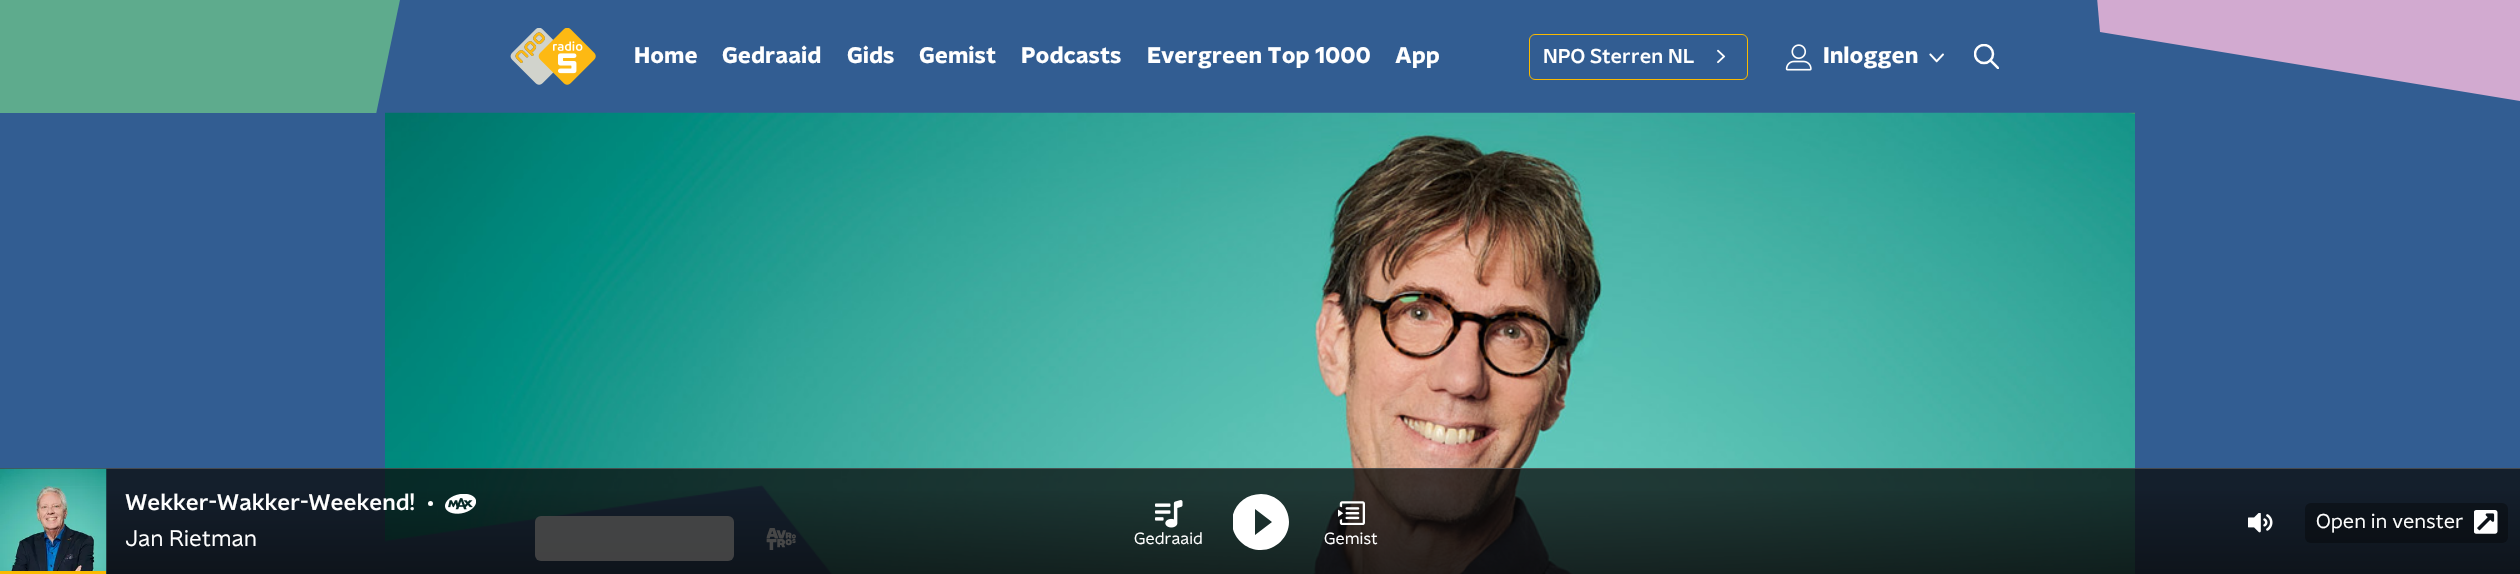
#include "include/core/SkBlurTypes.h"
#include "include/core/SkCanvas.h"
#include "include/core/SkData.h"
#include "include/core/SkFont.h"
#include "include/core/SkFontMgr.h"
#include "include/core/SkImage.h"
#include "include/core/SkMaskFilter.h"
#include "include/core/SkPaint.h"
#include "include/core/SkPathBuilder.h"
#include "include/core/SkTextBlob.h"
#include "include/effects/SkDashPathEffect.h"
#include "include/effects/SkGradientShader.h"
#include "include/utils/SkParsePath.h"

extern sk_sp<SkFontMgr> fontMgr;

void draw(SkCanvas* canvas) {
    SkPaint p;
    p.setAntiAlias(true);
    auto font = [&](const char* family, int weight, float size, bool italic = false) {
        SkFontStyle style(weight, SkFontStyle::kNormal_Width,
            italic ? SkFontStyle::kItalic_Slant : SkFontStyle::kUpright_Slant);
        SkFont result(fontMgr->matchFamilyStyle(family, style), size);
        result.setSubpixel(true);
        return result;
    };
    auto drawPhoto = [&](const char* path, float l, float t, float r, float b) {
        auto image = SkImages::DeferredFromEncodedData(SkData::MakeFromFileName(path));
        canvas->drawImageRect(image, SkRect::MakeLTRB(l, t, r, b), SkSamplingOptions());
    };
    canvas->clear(0xFF325D92);
    canvas->save();
    canvas->clipRect(SkRect::MakeLTRB(0, 0, 429, 113));
    p.setColor(0xFF5EAB8D);
    canvas->drawPath(SkPathBuilder().moveTo(428, -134).lineTo(67, 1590).lineTo(-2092, 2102).lineTo(-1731, 379).close().detach(), p);
    canvas->restore();
    p.setColor(0xFFD2AAD0);
    canvas->drawPath(SkPathBuilder().moveTo(2100, 32).lineTo(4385, 408).lineTo(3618, -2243).lineTo(1865, -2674).close().detach(), p);
    drawPhoto("media/1.png", 510, 28, 596, 85);
    auto font1 = font("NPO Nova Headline", 700, 22.5f);
    p.setColor(0xFFFFFFFF);
    {
        const struct { const char* s; float x, y; } items[] = {
            {"Home", 634, 63},
            {"Gedraaid", 722, 63},
            {"Gids", 847, 63},
            {"Gemist", 919, 63},
            {"Podcasts", 1021, 63},
            {"Evergreen Top 1000", 1147, 63},
            {"App", 1395, 63},
        };
        for (auto [s, x, y] : items) {
            canvas->drawString(s, x, y, font1, p);
        }
    }
    p.setStyle(SkPaint::kStroke_Style);
    p.setStrokeWidth(1);
    p.setColor(0xFFFABA00);
    canvas->drawRoundRect(SkRect::MakeLTRB(1529.5f, 34.5f, 1747.5f, 79.5f), 5.5f, 5.5f, p);
    auto font2 = font("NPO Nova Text", 500, 20);
    p.setStyle(SkPaint::kFill_Style);
    p.setColor(0xFFFFFFFF);
    canvas->drawString("NPO Sterren NL", 1543, 63, font2, p);
    drawPhoto("media/2.png", 1717, 49, 1726, 64);
    drawPhoto("media/3.png", 1785, 44, 1812, 71);
    canvas->drawString("Inloggen", 1823, 63, font1, p);
    drawPhoto("media/4.png", 1929, 53, 1944, 63);
    canvas->save();
    canvas->clipRect(SkRect::MakeLTRB(1974, 44, 1999, 69));
    p.setStyle(SkPaint::kStroke_Style);
    p.setStrokeWidth(2.5f);
    canvas->drawCircle(1984, 54, 9, p);
    p.setStrokeCap(SkPaint::kSquare_Cap);
    canvas->drawPath(SkPathBuilder().moveTo(1990.5f, 60.5f).lineTo(1998, 68).detach(), p);
    canvas->restore();
    drawPhoto("media/5.png", 385, 112, 2135, 574);
    p.setStyle(SkPaint::kFill_Style);
    {
        const SkColor colors[] = {0x00000000, 0xFF000000};
        const float stops[] = {0, 1};
        const SkPoint ends[] = {{1260, 487}, {1260, 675}};
        p.setShader(SkGradientShader::MakeLinear(ends, colors, stops, 2, SkTileMode::kClamp));
        p.setAlpha(255);
    }
    canvas->drawRect(SkRect::MakeLTRB(106, 491, 2520, 574), p);
    p.setShader(nullptr);
    p.setColor(0xE6FFFFFF);
    canvas->drawRoundRect(SkRect::MakeLTRB(535, 516, 734, 561), 6, 6, p);
    drawPhoto("media/6.png", 766, 528, 796, 550);
    p.setColor(0xBF090909);
    canvas->drawRect(SkRect::MakeLTRB(0, 468, 2520, 574), p);
    p.setColor(0xA65F5F5F);
    canvas->drawRect(SkRect::MakeLTRB(0, 468, 2520, 469), p);
    drawPhoto("media/7.png", 0, 468, 107, 574);
    p.setColor(0xFFFABA00);
    canvas->drawRect(SkRect::MakeLTRB(0, 571, 106, 574), p);
    auto font3 = font("NPO Nova Text", 500, 22.5f);
    p.setColor(0xFFFFFFFF);
    canvas->drawString("Wekker-Wakker-Weekend!", 125, 510, font3, p);
    canvas->drawCircle(430.5f, 503.5f, 2.5f, p);
    drawPhoto("media/8.png", 445, 494, 476, 514);
    auto font4 = font("NPO Nova Text", 400, 22.5f);
    canvas->drawString("Jan Rietman", 125, 546, font4, p);
    drawPhoto("media/9.png", 2248, 513, 2273, 533);
    p.setColor(0x59000000);
    canvas->drawRoundRect(SkRect::MakeLTRB(2305, 503, 2508, 543), 6, 6, p);
    auto font5 = font("NPO Nova Text", 400, 20);
    p.setColor(0xFFFFFFFF);
    canvas->drawString("Open in venster", 2316, 528, font5, p);
    drawPhoto("media/10.png", 2474, 510, 2498, 534);
    drawPhoto("media/11.png", 1155, 500, 1183, 528);
    auto font6 = font("NPO Nova Text", 400, 16.25f);
    canvas->drawString("Gedraaid", 1134, 544, font6, p);
    canvas->save();
    canvas->clipRect(SkRect::MakeLTRB(1233, 494, 1289, 550));
    canvas->drawPath(SkPathBuilder().moveTo(1261, 494).cubicTo(1245, 494, 1232, 506, 1232, 522).cubicTo(1232, 537, 1245, 550, 1261, 550).cubicTo(1276, 550, 1289, 537, 1289, 522).cubicTo(1289, 506, 1276, 494, 1261, 494).close().moveTo(1255, 535).lineTo(1255, 509).lineTo(1272, 522).close().detach(), p);
    canvas->restore();
    drawPhoto("media/12.png", 1338, 501, 1365, 525);
    canvas->drawString("Gemist", 1324, 544, font6, p);
}
